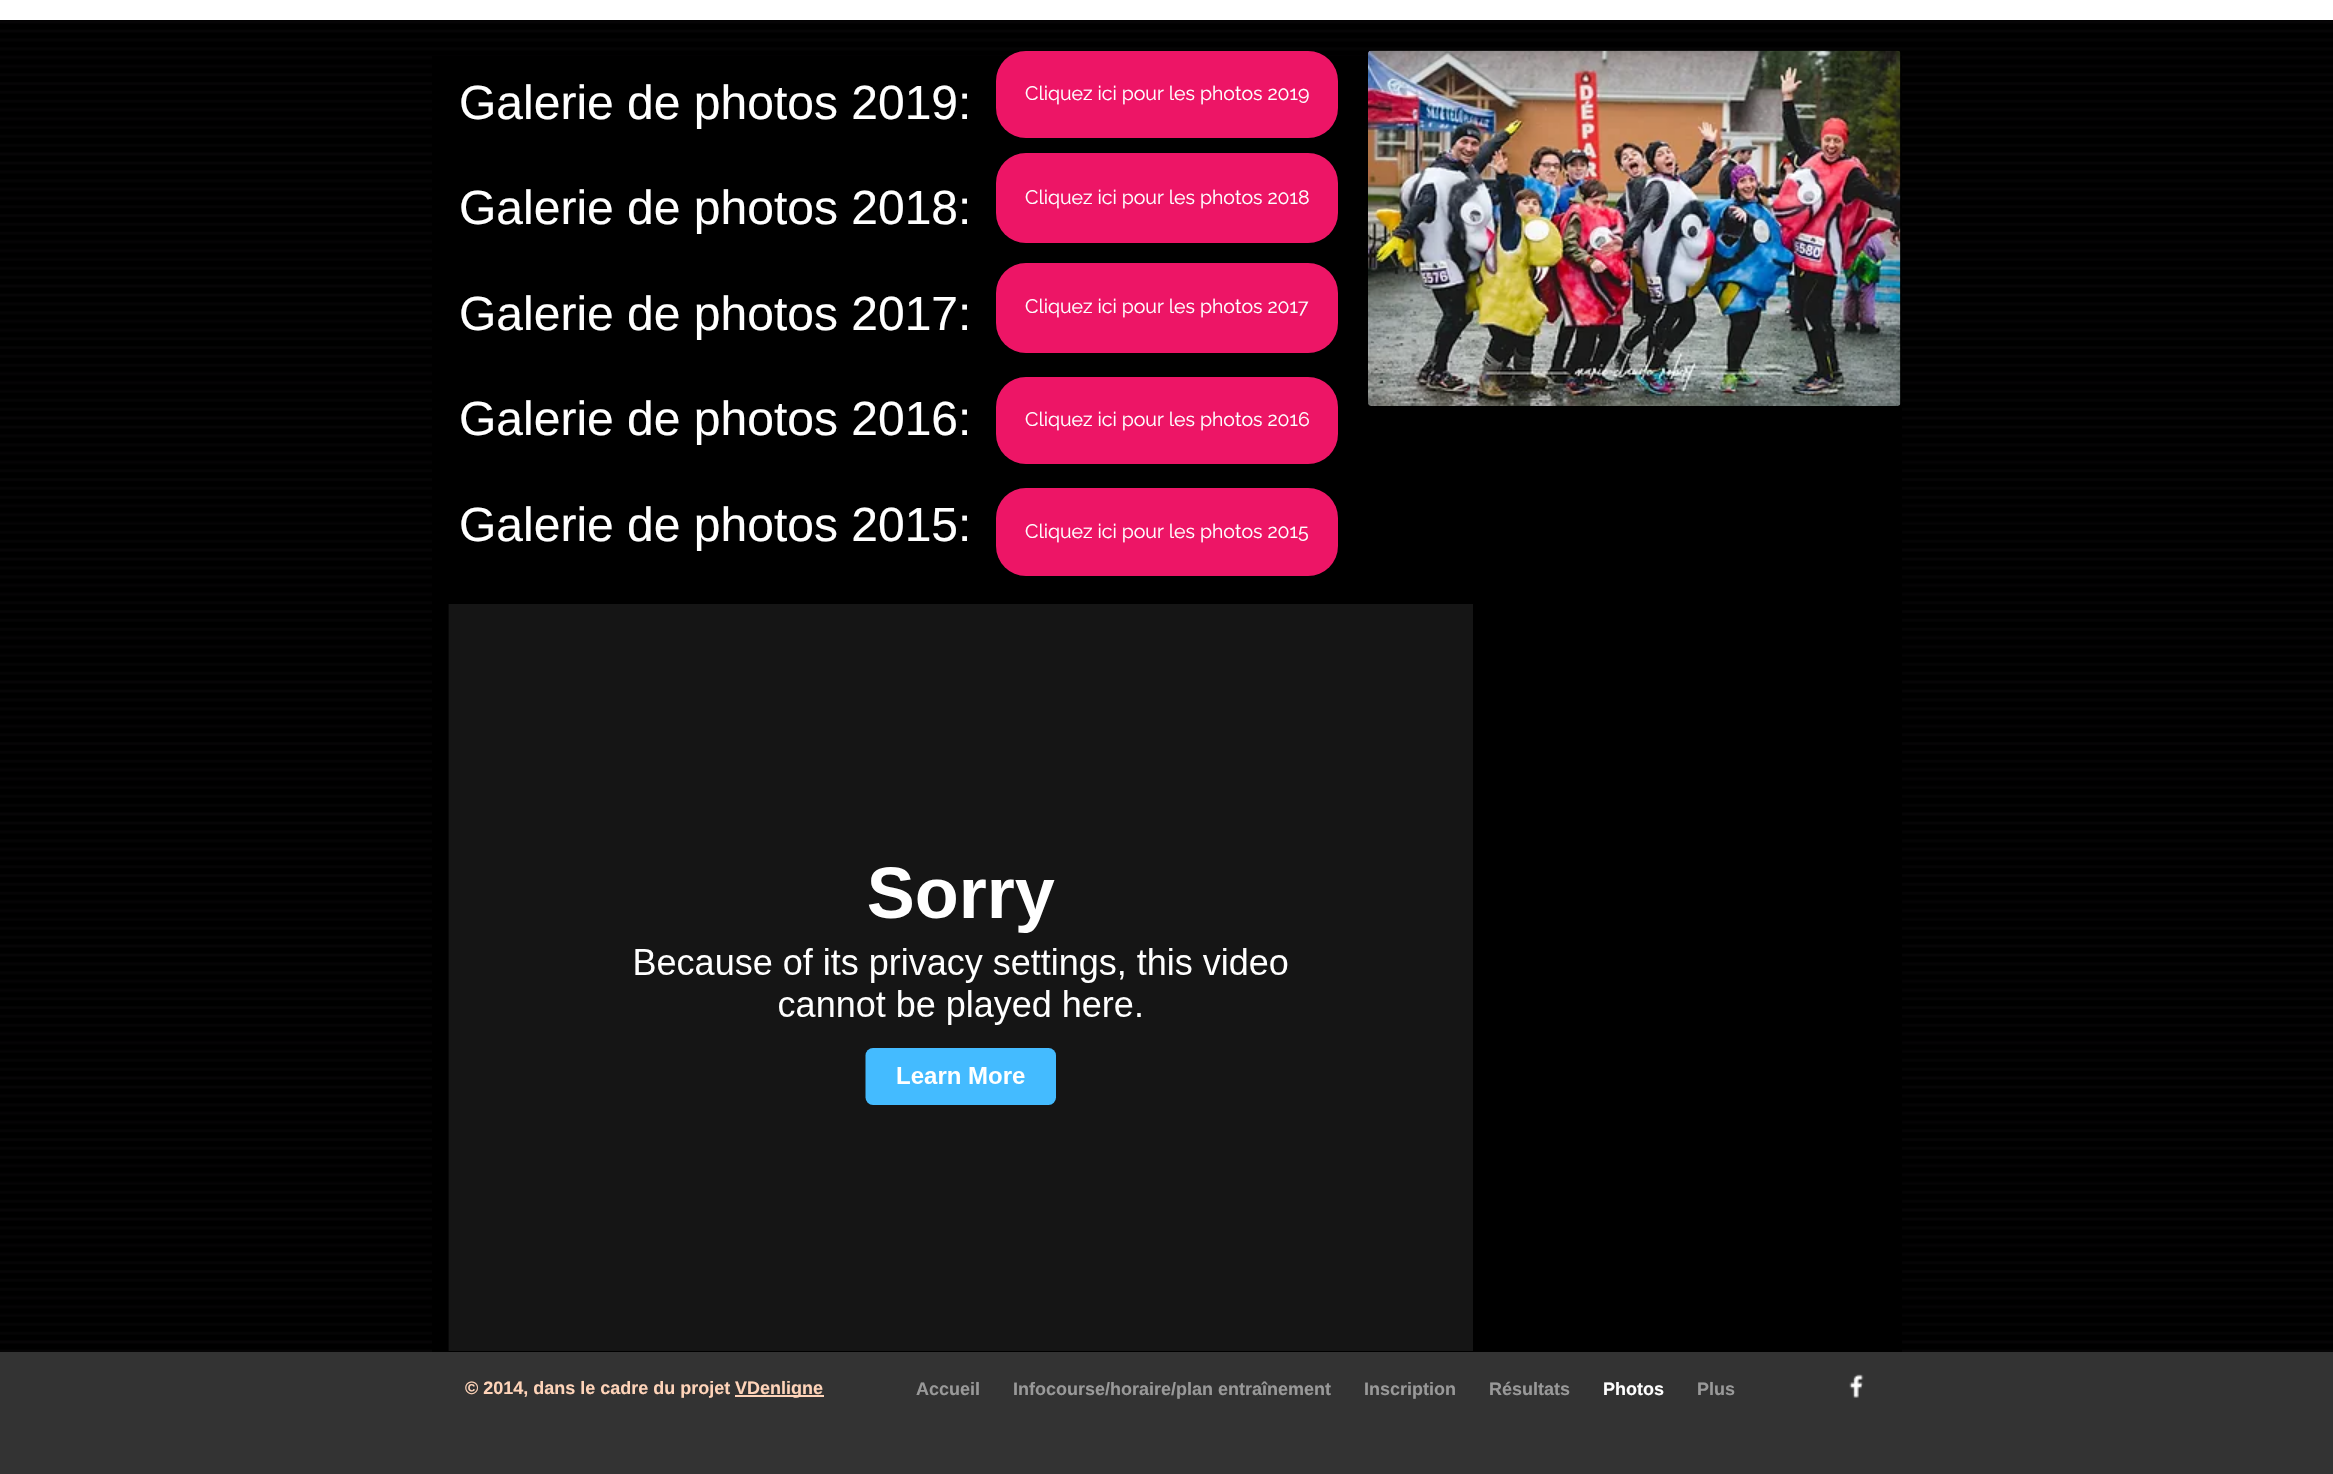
#include "include/core/SkBlurTypes.h"
#include "include/core/SkCanvas.h"
#include "include/core/SkData.h"
#include "include/core/SkFont.h"
#include "include/core/SkFontMgr.h"
#include "include/core/SkImage.h"
#include "include/core/SkMaskFilter.h"
#include "include/core/SkPaint.h"
#include "include/core/SkPathBuilder.h"
#include "include/core/SkTextBlob.h"
#include "include/effects/SkDashPathEffect.h"
#include "include/effects/SkGradientShader.h"
#include "include/utils/SkParsePath.h"

extern sk_sp<SkFontMgr> fontMgr;

void draw(SkCanvas* canvas) {
    SkPaint p;
    p.setAntiAlias(true);
    auto font = [&](const char* family, int weight, float size, bool italic = false) {
        SkFontStyle style(weight, SkFontStyle::kNormal_Width,
            italic ? SkFontStyle::kItalic_Slant : SkFontStyle::kUpright_Slant);
        SkFont result(fontMgr->matchFamilyStyle(family, style), size);
        result.setSubpixel(true);
        return result;
    };
    auto drawPhoto = [&](const char* path, float l, float t, float r, float b) {
        auto image = SkImages::DeferredFromEncodedData(SkData::MakeFromFileName(path));
        canvas->drawImageRect(image, SkRect::MakeLTRB(l, t, r, b), SkSamplingOptions());
    };
    canvas->clear(0xFF000000);
    drawPhoto("media/1.png", 0, 20, 2333, 1352);
    p.setColor(0xFFFFFFFF);
    canvas->drawRect(SkRect::MakeLTRB(0, 0, 2333, 20), p);
    p.setColor(0xFF000000);
    canvas->drawRect(SkRect::MakeLTRB(432, 56, 1902, 1352), p);
    auto font1 = font("Liberation Sans", 400, 48);
    p.setColor(0xFFFFFFFF);
    {
        const struct { const char* s; float x, y; } items[] = {
            {"Galerie de photos 2019:", 459, 119},
            {"Galerie de photos 2018:", 459, 224},
            {"Galerie de photos 2017:", 459, 330},
            {"Galerie de photos 2016:", 459, 435},
            {"Galerie de photos 2015:", 459, 541},
        };
        for (auto [s, x, y] : items) {
            canvas->drawString(s, x, y, font1, p);
        }
    }
    p.setColor(0xFFED1566);
    canvas->drawRoundRect(SkRect::MakeLTRB(996, 51, 1338, 138), 30, 30, p);
    auto font2 = font("Raleway", 400, 19.5f);
    p.setColor(0xFFFFFFFF);
    canvas->drawString("Cliquez ici pour les photos 2019", 1025, 100, font2, p);
    drawPhoto("media/2.png", 1368, 50, 1901, 406);
    p.setColor(0xFFED1566);
    canvas->drawRoundRect(SkRect::MakeLTRB(996, 153, 1338, 243), 30, 30, p);
    p.setColor(0xFFFFFFFF);
    canvas->drawString("Cliquez ici pour les photos 2018", 1025, 204, font2, p);
    p.setColor(0xFFED1566);
    canvas->drawRoundRect(SkRect::MakeLTRB(996, 263, 1338, 353), 30, 30, p);
    p.setColor(0xFFFFFFFF);
    canvas->drawString("Cliquez ici pour les photos 2017", 1025, 313, font2, p);
    p.setColor(0xFFED1566);
    canvas->drawRoundRect(SkRect::MakeLTRB(996, 377, 1338, 464), 30, 30, p);
    p.setColor(0xFFFFFFFF);
    canvas->drawString("Cliquez ici pour les photos 2016", 1025, 426, font2, p);
    p.setColor(0xFFED1566);
    canvas->drawRoundRect(SkRect::MakeLTRB(996, 488, 1338, 576), 30, 30, p);
    p.setColor(0xFFFFFFFF);
    canvas->drawString("Cliquez ici pour les photos 2015", 1025, 538, font2, p);
    drawPhoto("media/3.png", 448, 604, 1473, 1351);
    p.setColor(0xFF333333);
    canvas->drawRect(SkRect::MakeLTRB(0, 1352, 2333, 1474), p);
    auto font3 = font("Liberation Sans", 700, 18);
    p.setColor(0xFFFFD4B9);
    canvas->drawString("© 2014, dans le cadre du projet", 465, 1394, font3, p);
    canvas->drawRect(SkRect::MakeLTRB(735, 1395, 824, 1397), p);
    canvas->drawString("VDenligne", 735, 1394, font3, p);
    p.setColor(0xFF999999);
    {
        const struct { const char* s; float x, y; } items[] = {
            {"Accueil", 916, 1395},
            {"Infocourse/horaire/plan entraînement", 1013, 1395},
            {"Inscription", 1364, 1395},
            {"Résultats", 1489, 1395},
        };
        for (auto [s, x, y] : items) {
            canvas->drawString(s, x, y, font3, p);
        }
    }
    p.setColor(0xFFFFFFFF);
    canvas->drawString("Photos", 1603, 1395, font3, p);
    p.setColor(0xFF999999);
    canvas->drawString("Plus", 1697, 1395, font3, p);
    drawPhoto("media/4.png", 1849, 1374, 1864, 1398);
}
